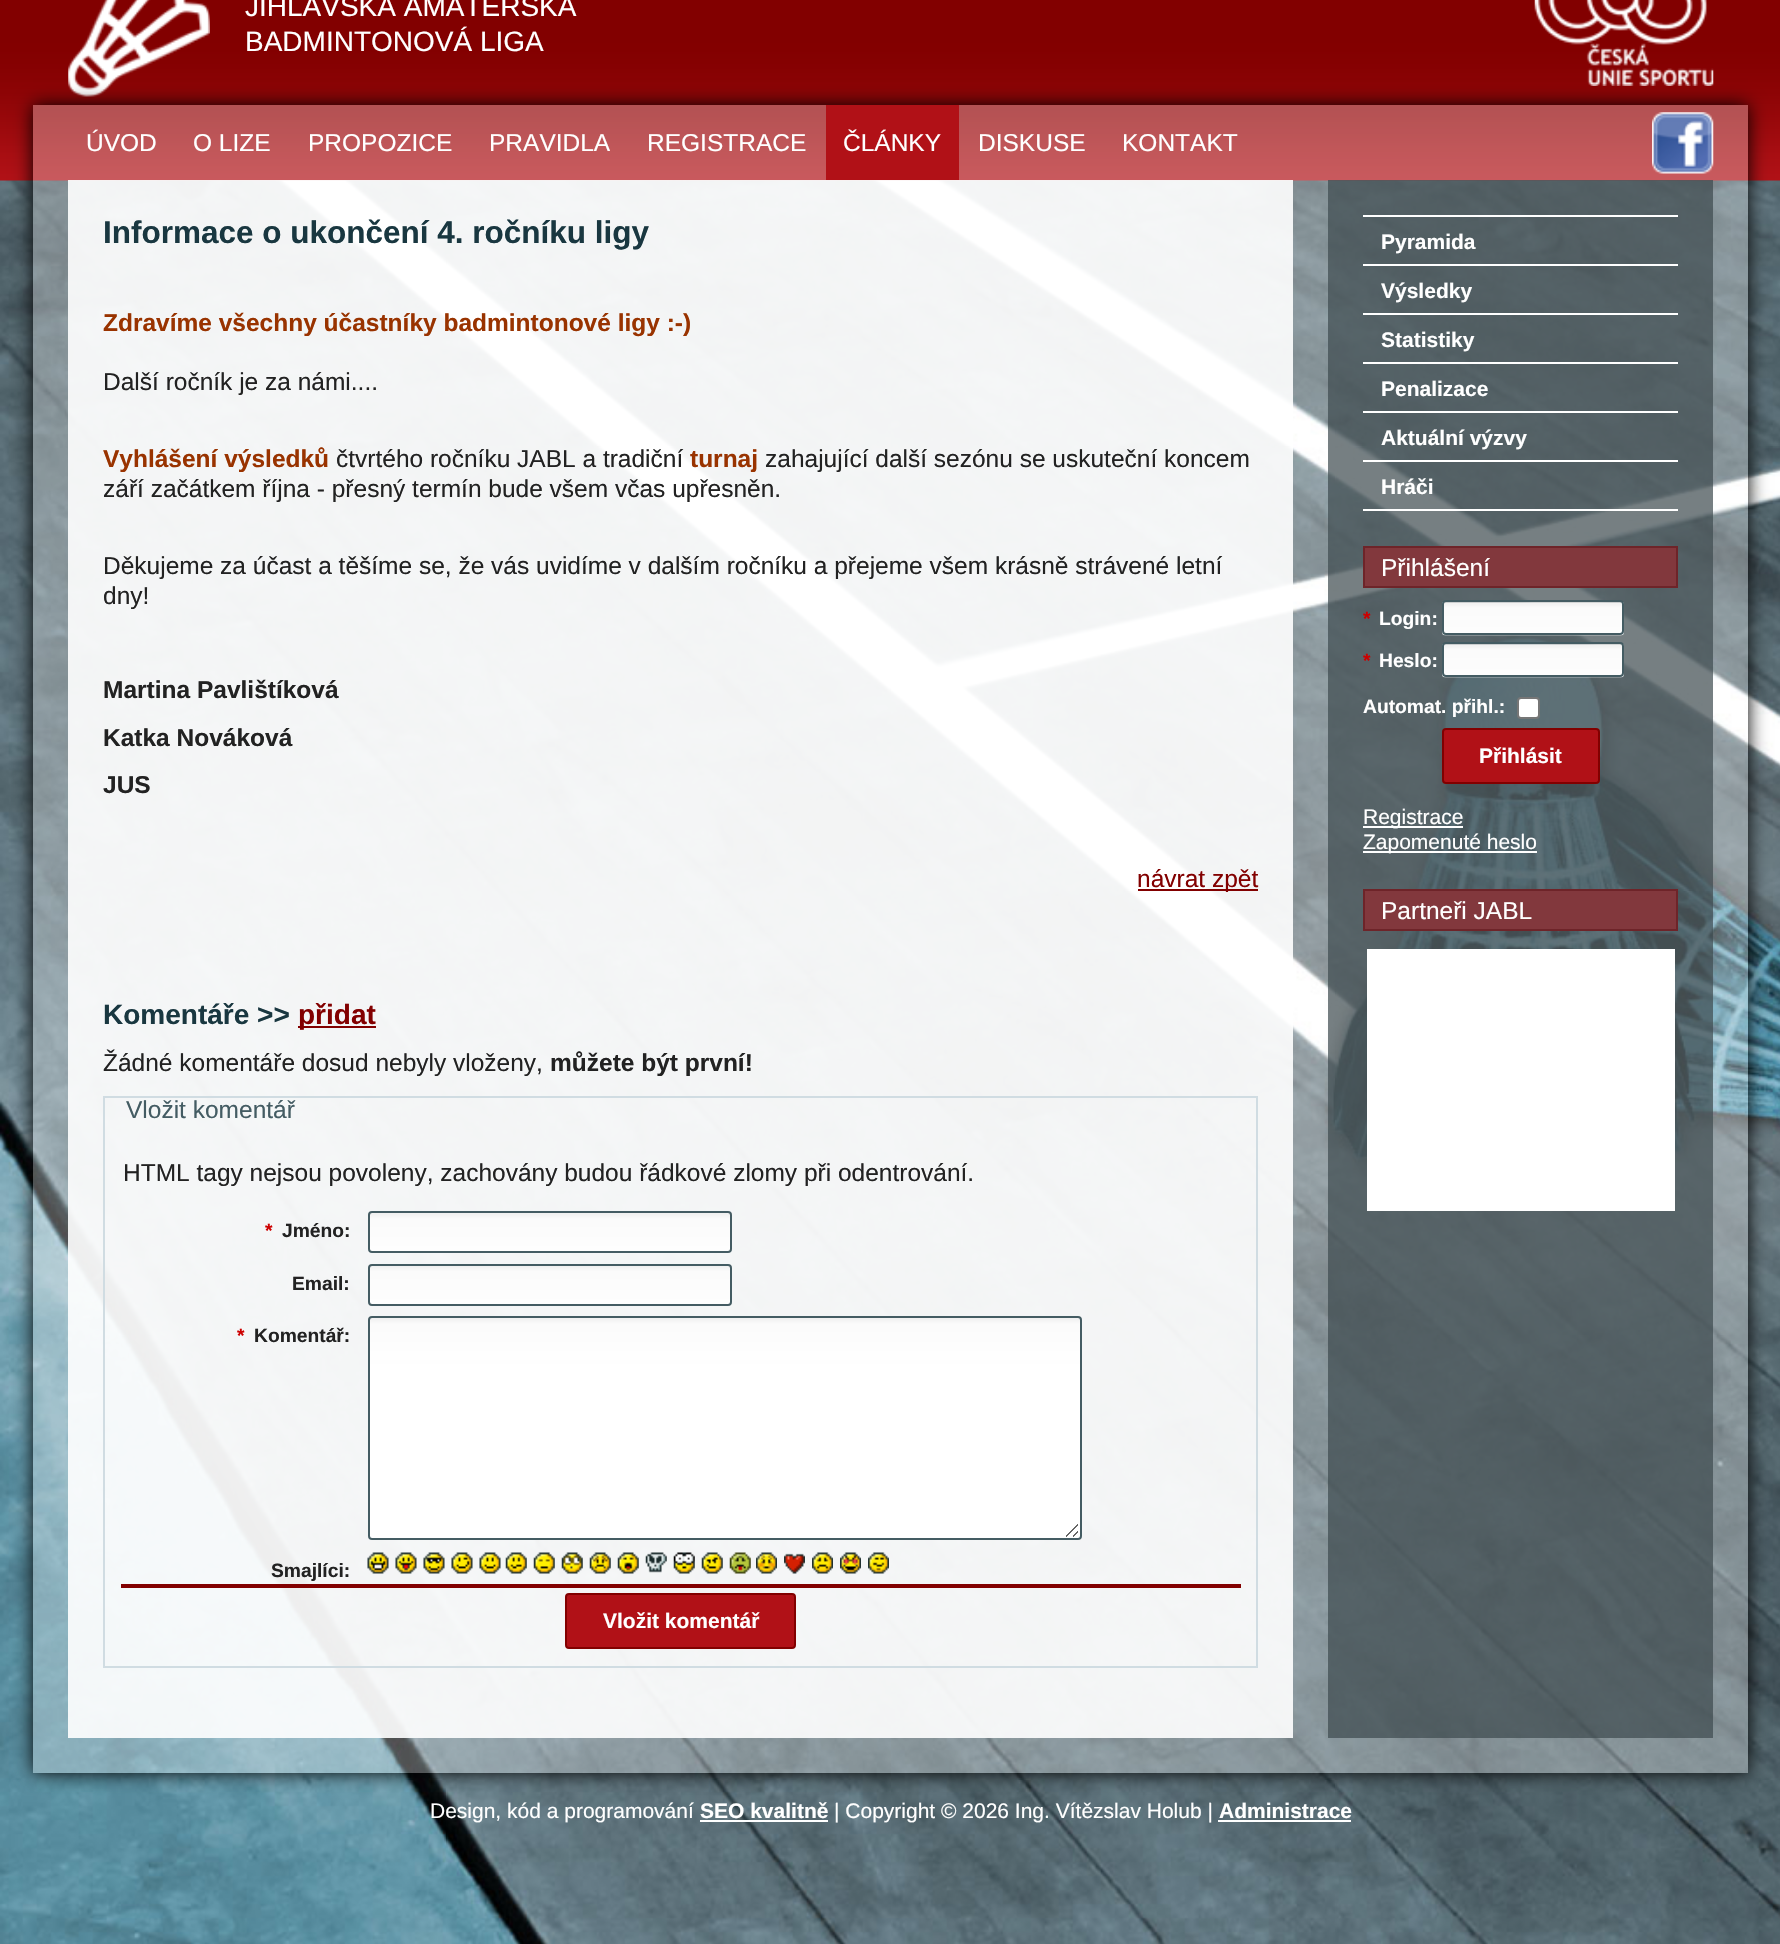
#include "include/core/SkBlurTypes.h"
#include "include/core/SkCanvas.h"
#include "include/core/SkData.h"
#include "include/core/SkFont.h"
#include "include/core/SkFontMgr.h"
#include "include/core/SkImage.h"
#include "include/core/SkMaskFilter.h"
#include "include/core/SkPaint.h"
#include "include/core/SkPathBuilder.h"
#include "include/core/SkTextBlob.h"
#include "include/effects/SkDashPathEffect.h"
#include "include/effects/SkGradientShader.h"
#include "include/utils/SkParsePath.h"

extern sk_sp<SkFontMgr> fontMgr;

void draw(SkCanvas* canvas) {
    SkPaint p;
    p.setAntiAlias(true);
    auto font = [&](const char* family, int weight, float size, bool italic = false) {
        SkFontStyle style(weight, SkFontStyle::kNormal_Width,
            italic ? SkFontStyle::kItalic_Slant : SkFontStyle::kUpright_Slant);
        SkFont result(fontMgr->matchFamilyStyle(family, style), size);
        result.setSubpixel(true);
        return result;
    };
    auto drawPhoto = [&](const char* path, float l, float t, float r, float b) {
        auto image = SkImages::DeferredFromEncodedData(SkData::MakeFromFileName(path));
        canvas->drawImageRect(image, SkRect::MakeLTRB(l, t, r, b), SkSamplingOptions());
    };
    canvas->clear(0xFFFFFFFF);
    drawPhoto("media/1.png", 0, 180, 1780, 1944);
    drawPhoto("media/2.png", 0, 0, 1780, 181);
    drawPhoto("media/3.png", 68, 0, 210, 97);
    auto font1 = font("Liberation Sans", 400, 28);
    p.setColor(0xFFFFFFFF);
    canvas->drawString("JIHLAVSKÁ AMATÉRSKÁ", 245, 16, font1, p);
    canvas->drawString("BADMINTONOVÁ LIGA", 245, 51, font1, p);
    drawPhoto("media/4.png", 1534, 0, 1714, 86);
    canvas->save();
    canvas->clipPath(SkPathBuilder(SkPathFillType::kEvenOdd).moveTo(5, 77).lineTo(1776, 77).lineTo(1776, 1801).lineTo(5, 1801).close().moveTo(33, 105).lineTo(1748, 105).lineTo(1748, 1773).lineTo(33, 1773).close().detach(), true);
    p.setColor(0xFF000000);
    p.setMaskFilter(SkMaskFilter::MakeBlur(kNormal_SkBlurStyle, 9));
    canvas->drawRect(SkRect::MakeLTRB(33, 105, 1748, 1773), p);
    p.setMaskFilter(nullptr);
    canvas->restore();
    p.setColor(0x4DFFFFFF);
    canvas->drawRect(SkRect::MakeLTRB(33, 105, 1748, 1773), p);
    auto font2 = font("Liberation Sans", 400, 24.5f);
    p.setColor(0xFFFFFFFF);
    {
        const struct { const char* s; float x, y; } items[] = {
            {"ÚVOD", 86, 151},
            {"O LIZE", 193, 151},
            {"PROPOZICE", 308, 151},
            {"PRAVIDLA", 489, 151},
            {"REGISTRACE", 647, 151},
        };
        for (auto [s, x, y] : items) {
            canvas->drawString(s, x, y, font2, p);
        }
    }
    p.setColor(0xFFB11117);
    canvas->drawRect(SkRect::MakeLTRB(826, 105, 959, 180), p);
    p.setColor(0xFFFFFFFF);
    {
        const struct { const char* s; float x, y; } items[] = {
            {"ČLÁNKY", 843, 151},
            {"DISKUSE", 978, 151},
            {"KONTAKT", 1122, 151},
        };
        for (auto [s, x, y] : items) {
            canvas->drawString(s, x, y, font2, p);
        }
    }
    drawPhoto("media/5.png", 1652, 112, 1714, 174);
    p.setColor(0xE6FFFFFF);
    canvas->drawRect(SkRect::MakeLTRB(68, 180, 1293, 1738), p);
    auto font3 = font("Liberation Sans", 700, 31.5f);
    p.setColor(0xFF193740);
    canvas->drawString("Informace o ukončení 4. ročníku ligy", 103, 243, font3, p);
    auto font4 = font("Liberation Sans", 700, 24.5f);
    p.setColor(0xFF993300);
    canvas->drawString("Zdravíme všechny účastníky badmintonové ligy :-)", 103, 331, font4, p);
    p.setColor(0xFF222222);
    canvas->drawString("Další ročník je za námi....", 103, 390, font2, p);
    p.setColor(0xFF993300);
    canvas->drawString("Vyhlášení výsledků", 103, 467, font4, p);
    p.setColor(0xFF222222);
    canvas->drawString("čtvrtého ročníku JABL a tradiční", 336, 467, font2, p);
    p.setColor(0xFF993300);
    canvas->drawString("turnaj", 690, 467, font4, p);
    p.setColor(0xFF222222);
    {
        const struct { const char* s; float x, y; } items[] = {
            {"zahajující další sezónu se uskuteční koncem", 765, 467},
            {"září začátkem října - přesný termín bude všem včas upřesněn.", 103, 497},
            {"Děkujeme za účast a těšíme se, že vás uvidíme v dalším ročníku a přejeme všem krásně strávené letní", 103, 574},
            {"dny!", 103, 604},
        };
        for (auto [s, x, y] : items) {
            canvas->drawString(s, x, y, font2, p);
        }
    }
    {
        const struct { const char* s; float x, y; } items[] = {
            {"Martina Pavlištíková", 103, 698},
            {"Katka Nováková", 103, 746},
            {"JUS", 103, 793},
        };
        for (auto [s, x, y] : items) {
            canvas->drawString(s, x, y, font4, p);
        }
    }
    p.setColor(0xFF820000);
    canvas->drawRect(SkRect::MakeLTRB(1138, 889, 1258, 891), p);
    canvas->drawString("návrat zpět", 1137, 887, font2, p);
    auto font5 = font("Liberation Sans", 700, 28);
    p.setColor(0xFF193740);
    canvas->drawString("Komentáře >>", 103, 1024, font5, p);
    p.setColor(0xFF820000);
    canvas->drawRect(SkRect::MakeLTRB(298, 1026, 376, 1028), p);
    canvas->drawString("přidat", 298, 1024, font5, p);
    p.setColor(0xFF222222);
    canvas->drawString("Žádné komentáře dosud nebyly vloženy,", 103, 1071, font2, p);
    canvas->drawString("můžete být první!", 550, 1071, font4, p);
    p.setStyle(SkPaint::kStroke_Style);
    p.setStrokeWidth(2);
    p.setColor(0xFFD0DCE2);
    canvas->drawRect(SkRect::MakeLTRB(104, 1097, 1257, 1667), p);
    p.setStyle(SkPaint::kFill_Style);
    p.setColor(0xFF445C63);
    canvas->drawString("Vložit komentář", 126, 1118, font2, p);
    p.setColor(0xFF222222);
    canvas->drawString("HTML tagy nejsou povoleny, zachovány budou řádkové zlomy při odentrování.", 123, 1181, font2, p);
    auto font6 = font("Liberation Sans", 700, 19.25f);
    p.setColor(0xFFCD0000);
    canvas->drawString("*", 265, 1237, font6, p);
    p.setColor(0xFF222222);
    canvas->drawString("Jméno:", 282, 1237, font6, p);
    drawPhoto("media/6.png", 368, 1213, 731, 1253);
    p.setStyle(SkPaint::kStroke_Style);
    p.setColor(0xFF445C63);
    canvas->drawRoundRect(SkRect::MakeLTRB(369, 1212, 731, 1252), 3, 3, p);
    p.setStyle(SkPaint::kFill_Style);
    p.setColor(0xFF222222);
    canvas->drawString("Email:", 292, 1290, font6, p);
    drawPhoto("media/7.png", 368, 1265, 731, 1305);
    p.setStyle(SkPaint::kStroke_Style);
    p.setColor(0xFF445C63);
    canvas->drawRoundRect(SkRect::MakeLTRB(369, 1265, 731, 1305), 3, 3, p);
    p.setStyle(SkPaint::kFill_Style);
    p.setColor(0xFFCD0000);
    canvas->drawString("*", 237, 1342, font6, p);
    p.setColor(0xFF222222);
    canvas->drawString("Komentář:", 254, 1342, font6, p);
    p.setColor(0xFFFFFFFF);
    canvas->drawRoundRect(SkRect::MakeLTRB(368, 1316, 1082, 1540), 4, 4, p);
    drawPhoto("media/8.png", 368, 1318, 1080, 1537);
    p.setStyle(SkPaint::kStroke_Style);
    p.setColor(0xFF445C63);
    canvas->drawRoundRect(SkRect::MakeLTRB(369, 1317, 1081, 1539), 3, 3, p);
    p.setStyle(SkPaint::kFill_Style);
    p.setColor(0xFF222222);
    canvas->drawString("Smajlíci:", 271, 1577, font6, p);
    drawPhoto("media/9.png", 367, 1552, 389, 1574);
    drawPhoto("media/10.png", 395, 1552, 417, 1574);
    drawPhoto("media/11.png", 423, 1552, 445, 1574);
    drawPhoto("media/12.png", 451, 1552, 473, 1574);
    drawPhoto("media/13.png", 479, 1552, 501, 1574);
    drawPhoto("media/14.png", 505, 1552, 527, 1574);
    drawPhoto("media/15.png", 533, 1552, 555, 1574);
    drawPhoto("media/16.png", 561, 1552, 583, 1574);
    drawPhoto("media/17.png", 589, 1552, 611, 1574);
    drawPhoto("media/18.png", 617, 1552, 639, 1574);
    drawPhoto("media/19.png", 645, 1552, 667, 1573);
    drawPhoto("media/20.png", 673, 1552, 695, 1574);
    drawPhoto("media/21.png", 701, 1552, 723, 1574);
    drawPhoto("media/22.png", 729, 1552, 751, 1574);
    drawPhoto("media/23.png", 756, 1552, 777, 1574);
    drawPhoto("media/24.png", 784, 1553, 805, 1574);
    drawPhoto("media/25.png", 812, 1552, 833, 1574);
    drawPhoto("media/26.png", 840, 1552, 861, 1574);
    drawPhoto("media/27.png", 868, 1552, 889, 1574);
    p.setColor(0xFF820000);
    canvas->drawRect(SkRect::MakeLTRB(121, 1584, 1241, 1588), p);
    p.setColor(0xFFB11117);
    canvas->drawRoundRect(SkRect::MakeLTRB(566, 1594, 795, 1648), 3, 3, p);
    p.setStyle(SkPaint::kStroke_Style);
    p.setColor(0xFF820000);
    canvas->drawRoundRect(SkRect::MakeLTRB(566, 1594, 795, 1648), 3, 3, p);
    auto font7 = font("Liberation Sans", 700, 21);
    p.setStyle(SkPaint::kFill_Style);
    p.setColor(0xFFFFFFFF);
    canvas->drawString("Vložit komentář", 603, 1628, font7, p);
    p.setColor(0xB33C484D);
    canvas->drawRect(SkRect::MakeLTRB(1328, 180, 1713, 1738), p);
    p.setColor(0xFFFFFFFF);
    canvas->drawRect(SkRect::MakeLTRB(1363, 215, 1678, 217), p);
    canvas->drawString("Pyramida", 1381, 249, font7, p);
    canvas->drawRect(SkRect::MakeLTRB(1363, 264, 1678, 266), p);
    canvas->drawString("Výsledky", 1381, 298, font7, p);
    canvas->drawRect(SkRect::MakeLTRB(1363, 313, 1678, 315), p);
    canvas->drawString("Statistiky", 1381, 347, font7, p);
    canvas->drawRect(SkRect::MakeLTRB(1363, 362, 1678, 364), p);
    canvas->drawString("Penalizace", 1381, 396, font7, p);
    canvas->drawRect(SkRect::MakeLTRB(1363, 411, 1678, 413), p);
    canvas->drawString("Aktuální výzvy", 1381, 445, font7, p);
    canvas->drawRect(SkRect::MakeLTRB(1363, 460, 1678, 462), p);
    canvas->drawRect(SkRect::MakeLTRB(1363, 509, 1678, 511), p);
    canvas->drawString("Hráči", 1381, 494, font7, p);
    p.setColor(0xFF82383D);
    canvas->drawRect(SkRect::MakeLTRB(1364, 547, 1677, 587), p);
    p.setStyle(SkPaint::kStroke_Style);
    p.setColor(0xFF6E2429);
    canvas->drawRect(SkRect::MakeLTRB(1364, 547, 1677, 587), p);
    p.setStyle(SkPaint::kFill_Style);
    p.setColor(0xFFFFFFFF);
    canvas->drawString("Přihlášení", 1381, 576, font2, p);
    p.setColor(0xFFCD0000);
    canvas->drawString("*", 1363, 625, font6, p);
    p.setColor(0xFFFFFFFF);
    canvas->drawString("Login:", 1379, 625, font6, p);
    drawPhoto("media/28.png", 1442, 602, 1624, 636);
    p.setStyle(SkPaint::kStroke_Style);
    p.setColor(0xFF445C63);
    canvas->drawRoundRect(SkRect::MakeLTRB(1443, 601, 1623, 634), 3, 3, p);
    p.setStyle(SkPaint::kFill_Style);
    p.setColor(0xFFCD0000);
    canvas->drawString("*", 1363, 667, font6, p);
    p.setColor(0xFFFFFFFF);
    canvas->drawString("Heslo:", 1379, 667, font6, p);
    drawPhoto("media/29.png", 1442, 644, 1624, 678);
    p.setStyle(SkPaint::kStroke_Style);
    p.setColor(0xFF445C63);
    canvas->drawRoundRect(SkRect::MakeLTRB(1443, 643, 1623, 676), 3, 3, p);
    p.setStyle(SkPaint::kFill_Style);
    p.setColor(0xFFFFFFFF);
    canvas->drawString("Automat. přihl.:", 1363, 713, font6, p);
    canvas->drawRoundRect(SkRect::MakeLTRB(1518, 698, 1539, 718), 3, 3, p);
    p.setStyle(SkPaint::kStroke_Style);
    p.setColor(0xFF767676);
    canvas->drawRoundRect(SkRect::MakeLTRB(1518, 698, 1539, 718), 3, 3, p);
    p.setStyle(SkPaint::kFill_Style);
    p.setColor(0xFFB11117);
    canvas->drawRoundRect(SkRect::MakeLTRB(1443, 729, 1599, 783), 3, 3, p);
    p.setStyle(SkPaint::kStroke_Style);
    p.setColor(0xFF820000);
    canvas->drawRoundRect(SkRect::MakeLTRB(1443, 729, 1599, 783), 3, 3, p);
    p.setStyle(SkPaint::kFill_Style);
    p.setColor(0xFFFFFFFF);
    canvas->drawString("Přihlásit", 1479, 763, font7, p);
    canvas->drawRect(SkRect::MakeLTRB(1363, 826, 1463, 828), p);
    auto font8 = font("Liberation Sans", 400, 21);
    canvas->drawString("Registrace", 1363, 824, font8, p);
    canvas->drawRect(SkRect::MakeLTRB(1363, 851, 1537, 853), p);
    canvas->drawString("Zapomenuté heslo", 1363, 849, font8, p);
    p.setColor(0xFF82383D);
    canvas->drawRect(SkRect::MakeLTRB(1364, 890, 1677, 930), p);
    p.setStyle(SkPaint::kStroke_Style);
    p.setColor(0xFF6E2429);
    canvas->drawRect(SkRect::MakeLTRB(1364, 890, 1677, 930), p);
    p.setStyle(SkPaint::kFill_Style);
    p.setColor(0xFFFFFFFF);
    canvas->drawString("Partneři JABL", 1381, 919, font2, p);
    canvas->drawRect(SkRect::MakeLTRB(1367, 949, 1675, 1211), p);
    canvas->drawString("Design, kód a programování", 430, 1818, font8, p);
    canvas->drawString("SEO kvalitně", 700, 1818, font7, p);
    canvas->drawRect(SkRect::MakeLTRB(700, 1820, 828, 1822), p);
    canvas->drawString("| Copyright © 2026 Ing. Vítězslav Holub |", 834, 1818, font8, p);
    canvas->drawString("Administrace", 1219, 1818, font7, p);
    canvas->drawRect(SkRect::MakeLTRB(1218, 1820, 1351, 1822), p);
}
